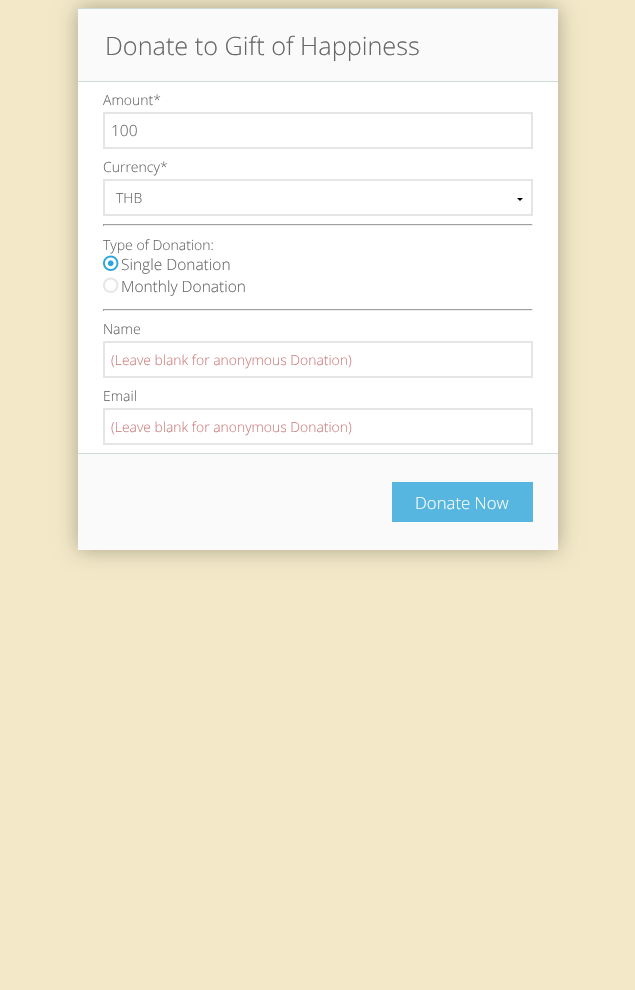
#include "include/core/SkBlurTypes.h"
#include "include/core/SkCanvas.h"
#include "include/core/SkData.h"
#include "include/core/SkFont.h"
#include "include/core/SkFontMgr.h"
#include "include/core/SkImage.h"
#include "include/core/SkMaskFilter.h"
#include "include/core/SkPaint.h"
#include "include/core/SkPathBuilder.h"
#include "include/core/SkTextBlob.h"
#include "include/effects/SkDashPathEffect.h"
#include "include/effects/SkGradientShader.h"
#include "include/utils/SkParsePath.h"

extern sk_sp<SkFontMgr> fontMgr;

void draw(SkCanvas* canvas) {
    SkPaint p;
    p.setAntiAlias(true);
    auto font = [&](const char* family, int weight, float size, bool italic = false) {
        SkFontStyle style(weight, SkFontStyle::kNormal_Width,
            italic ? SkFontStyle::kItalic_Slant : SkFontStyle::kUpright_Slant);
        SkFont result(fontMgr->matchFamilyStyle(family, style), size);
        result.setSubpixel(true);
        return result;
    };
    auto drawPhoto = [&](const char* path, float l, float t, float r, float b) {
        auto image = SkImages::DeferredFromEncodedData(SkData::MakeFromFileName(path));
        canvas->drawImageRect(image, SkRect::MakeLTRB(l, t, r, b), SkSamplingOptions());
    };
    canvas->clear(0xFFF3E9C8);
    p.setColor(0x4D000000);
    p.setMaskFilter(SkMaskFilter::MakeBlur(kNormal_SkBlurStyle, 10));
    canvas->drawRect(SkRect::MakeLTRB(78, 8, 558, 550), p);
    p.setMaskFilter(nullptr);
    {
        const struct { float l, t, r, b; SkColor color; } items[] = {
            {78, 82, 558, 453, 0xFFFFFFFF},
            {78, 9, 558, 81, 0xFFFAFAFA},
            {78, 8, 558, 9, 0xFFD0DADA},
            {78, 81, 558, 82, 0xFFD0DADA},
        };
        for (auto [l, t, r, b, color] : items) {
            p.setColor(color);
            canvas->drawRect(SkRect::MakeLTRB(l, t, r, b), p);
        }
    }
    auto font1 = font("Open Sans", 300, 25.25f);
    p.setColor(0xFF666666);
    canvas->drawString("Donate to Gift of Happiness", 105, 55, font1, p);
    auto font2 = font("Open Sans", 300, 14);
    canvas->drawString("Amount*", 103, 105, font2, p);
    p.setStyle(SkPaint::kStroke_Style);
    p.setStrokeWidth(2);
    p.setColor(0xFFE5E5E5);
    canvas->drawRect(SkRect::MakeLTRB(104, 113, 532, 148), p);
    auto font3 = font("Open Sans", 300, 15.5f);
    p.setStyle(SkPaint::kFill_Style);
    p.setColor(0xFF666666);
    canvas->drawString("100", 111, 136, font3, p);
    canvas->drawString("Currency*", 103, 172, font2, p);
    p.setStyle(SkPaint::kStroke_Style);
    p.setColor(0xFFE5E5E5);
    canvas->drawRect(SkRect::MakeLTRB(104, 180, 532, 215), p);
    p.setStyle(SkPaint::kFill_Style);
    p.setColor(0xFF666666);
    canvas->drawString("THB", 116, 203, font2, p);
    p.setColor(0xFF000000);
    canvas->drawPath(SkPathBuilder().moveTo(517, 198).lineTo(523, 198).lineTo(520, 201).close().detach(), p);
    {
        const struct { float l, t, r, b; SkColor color; } items[] = {
            {103, 224, 533, 225, 0xFF9F9F9F},
            {532, 224, 533, 226, 0xFFEEEEEE},
            {103, 225, 533, 226, 0xFFEEEEEE},
            {103, 224, 104, 226, 0xFF9F9F9F},
        };
        for (auto [l, t, r, b, color] : items) {
            p.setColor(color);
            canvas->drawRect(SkRect::MakeLTRB(l, t, r, b), p);
        }
    }
    p.setColor(0xFF666666);
    canvas->drawString("Type of Donation:", 103, 250, font2, p);
    drawPhoto("media/1.png", 103, 255, 119, 271);
    canvas->drawString("Single Donation", 121, 270, font3, p);
    drawPhoto("media/2.png", 103, 277, 119, 293);
    canvas->drawString("Monthly Donation", 121, 292, font3, p);
    {
        const struct { float l, t, r, b; SkColor color; } items[] = {
            {103, 309, 533, 310, 0xFF9F9F9F},
            {532, 309, 533, 311, 0xFFEEEEEE},
            {103, 310, 533, 311, 0xFFEEEEEE},
            {103, 309, 104, 311, 0xFF9F9F9F},
        };
        for (auto [l, t, r, b, color] : items) {
            p.setColor(color);
            canvas->drawRect(SkRect::MakeLTRB(l, t, r, b), p);
        }
    }
    p.setColor(0xFF666666);
    canvas->drawString("Name", 103, 334, font2, p);
    p.setStyle(SkPaint::kStroke_Style);
    p.setColor(0xFFE5E5E5);
    canvas->drawRect(SkRect::MakeLTRB(104, 342, 532, 377), p);
    auto font4 = font("Open Sans", 300, 13.9f);
    p.setStyle(SkPaint::kFill_Style);
    p.setColor(0xFFCE7E7E);
    canvas->drawString("(Leave blank for anonymous Donation)", 111, 365, font4, p);
    p.setColor(0xFF666666);
    canvas->drawString("Email", 103, 401, font2, p);
    p.setStyle(SkPaint::kStroke_Style);
    p.setColor(0xFFE5E5E5);
    canvas->drawRect(SkRect::MakeLTRB(104, 409, 532, 444), p);
    p.setStyle(SkPaint::kFill_Style);
    p.setColor(0xFFCE7E7E);
    canvas->drawString("(Leave blank for anonymous Donation)", 111, 432, font4, p);
    {
        const struct { float l, t, r, b; SkColor color; } items[] = {
            {78, 454, 558, 550, 0xFFFAFAFA},
            {78, 453, 558, 454, 0xFFD0DADA},
            {392, 482, 533, 522, 0xFF56B6E0},
        };
        for (auto [l, t, r, b, color] : items) {
            p.setColor(color);
            canvas->drawRect(SkRect::MakeLTRB(l, t, r, b), p);
        }
    }
    auto font5 = font("Open Sans", 300, 16.75f);
    p.setColor(0xFFFEFEFE);
    canvas->drawString("Donate Now", 415, 509, font5, p);
}
